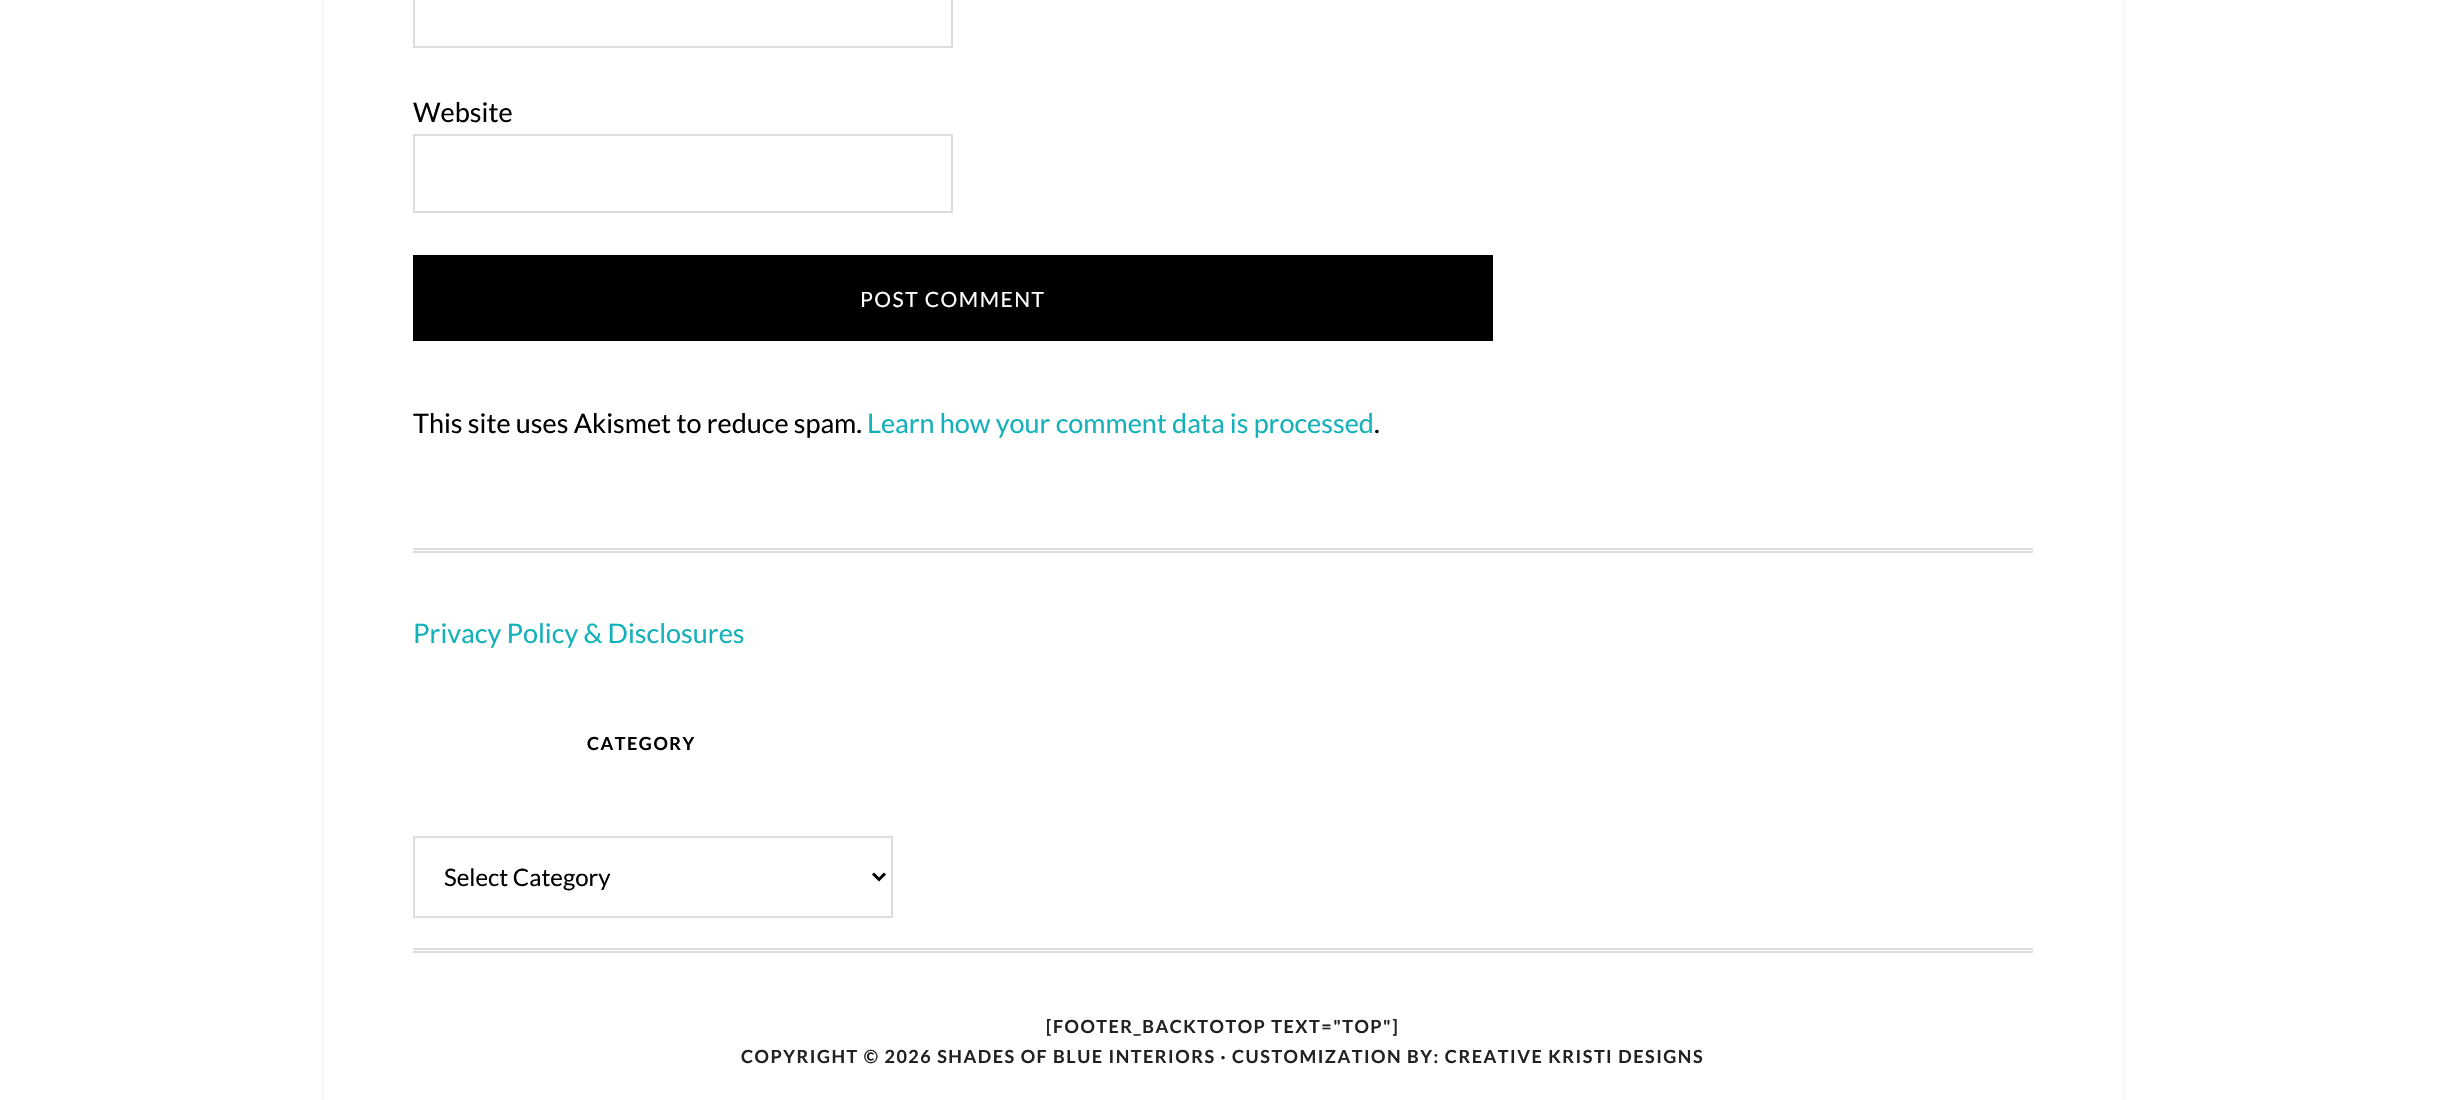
#include "include/core/SkBlurTypes.h"
#include "include/core/SkCanvas.h"
#include "include/core/SkData.h"
#include "include/core/SkFont.h"
#include "include/core/SkFontMgr.h"
#include "include/core/SkImage.h"
#include "include/core/SkMaskFilter.h"
#include "include/core/SkPaint.h"
#include "include/core/SkPathBuilder.h"
#include "include/core/SkTextBlob.h"
#include "include/effects/SkDashPathEffect.h"
#include "include/effects/SkGradientShader.h"
#include "include/utils/SkParsePath.h"

extern sk_sp<SkFontMgr> fontMgr;

void draw(SkCanvas* canvas) {
    SkPaint p;
    p.setAntiAlias(true);
    auto font = [&](const char* family, int weight, float size, bool italic = false) {
        SkFontStyle style(weight, SkFontStyle::kNormal_Width,
            italic ? SkFontStyle::kItalic_Slant : SkFontStyle::kUpright_Slant);
        SkFont result(fontMgr->matchFamilyStyle(family, style), size);
        result.setSubpixel(true);
        return result;
    };
    auto drawTracked = [&](const char* s, float x, float y, const SkFont& font, const SkPaint& ink, float letter, float word) {
        std::vector<SkGlyphID> glyphs(font.countText(s, strlen(s), SkTextEncoding::kUTF8));
        std::vector<float> xs(glyphs.size());
        font.textToGlyphs(s, strlen(s), SkTextEncoding::kUTF8, glyphs);
        font.getXPos(glyphs, xs, x);
        float extra = 0;
        for (size_t i = 0; i < glyphs.size(); i++) {
            xs[i] += extra;
            extra += letter + word * (glyphs[i] == font.unicharToGlyph(' '));
        }
        canvas->drawTextBlob(SkTextBlob::MakeFromPosHGlyphs(glyphs, xs, y, font), 0, 0, ink);
    };
    canvas->clear(0xFFFFFFFF);
    p.setColor(0x26000000);
    p.setMaskFilter(SkMaskFilter::MakeBlur(kNormal_SkBlurStyle, 1));
    canvas->drawRect(SkRect::MakeLTRB(323, -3, 2123, 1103), p);
    p.setMaskFilter(nullptr);
    p.setColor(0xFFFFFFFF);
    canvas->drawRect(SkRect::MakeLTRB(323, 0, 2123, 1100), p);
    p.setStyle(SkPaint::kStroke_Style);
    p.setStrokeWidth(2);
    p.setColor(0xFFDDDDDD);
    canvas->drawRect(SkRect::MakeLTRB(414, -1, 952, 47), p);
    auto font1 = font("Lato", 400, 27);
    p.setStyle(SkPaint::kFill_Style);
    p.setColor(0xFF000000);
    canvas->drawString("Website", 413, 122, font1, p);
    p.setStyle(SkPaint::kStroke_Style);
    p.setColor(0xFFDDDDDD);
    canvas->drawRect(SkRect::MakeLTRB(414, 135, 952, 212), p);
    p.setStyle(SkPaint::kFill_Style);
    p.setColor(0xFF000000);
    canvas->drawRect(SkRect::MakeLTRB(413, 255, 1493, 341), p);
    auto font2 = font("Lato", 400, 21);
    p.setColor(0xFFFFFFFF);
    drawTracked("POST COMMENT", 860, 307, font2, p, 1.5f, 0);
    p.setColor(0xFF000000);
    canvas->drawString("This site uses Akismet to reduce spam.", 413, 433, font1, p);
    p.setColor(0xFF13B1BA);
    canvas->drawString("Learn how your comment data is processed", 867, 433, font1, p);
    p.setColor(0xFF000000);
    canvas->drawString(".", 1374, 433, font1, p);
    p.setColor(0xFFDDDDDD);
    canvas->drawRect(SkRect::MakeLTRB(413, 548, 2033, 550), p);
    canvas->drawRect(SkRect::MakeLTRB(413, 551, 2033, 553), p);
    p.setColor(0xFF13B1BA);
    canvas->drawString("Privacy Policy & Disclosures", 413, 643, font1, p);
    auto font3 = font("Lato", 700, 18);
    p.setColor(0xFF000000);
    drawTracked("CATEGORY", 587, 750, font3, p, 1.5f, 0);
    p.setStyle(SkPaint::kStroke_Style);
    p.setColor(0xFFDDDDDD);
    canvas->drawRect(SkRect::MakeLTRB(414, 837, 892, 917), p);
    p.setStrokeWidth(3);
    p.setColor(0xFF000000);
    canvas->drawPath(SkPathBuilder().moveTo(873, 873.5f).lineTo(879, 879.5f).lineTo(885, 873.5f).detach(), p);
    auto font4 = font("Lato", 400, 24);
    p.setStyle(SkPaint::kFill_Style);
    canvas->drawString("Select Category", 444, 886, font4, p);
    p.setColor(0xFFDDDDDD);
    canvas->drawRect(SkRect::MakeLTRB(413, 948, 2033, 950), p);
    canvas->drawRect(SkRect::MakeLTRB(413, 951, 2033, 953), p);
    p.setColor(0xFF222222);
    drawTracked("[FOOTER_BACKTOTOP TEXT=\"TOP\"]", 1046, 1033, font3, p, 1.5f, 0);
    drawTracked("COPYRIGHT © 2026 SHADES OF BLUE INTERIORS · CUSTOMIZATION BY: CREATIVE KRISTI DESIGNS", 741, 1063, font3, p, 1.5f, 0);
}
